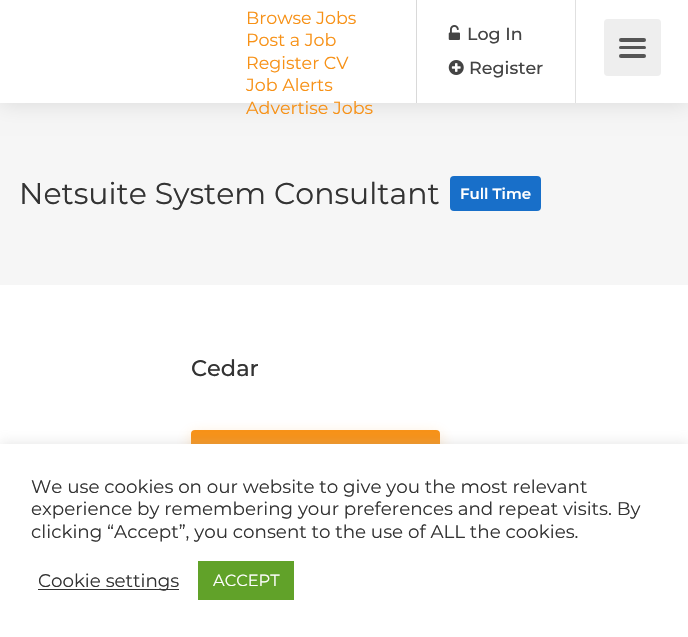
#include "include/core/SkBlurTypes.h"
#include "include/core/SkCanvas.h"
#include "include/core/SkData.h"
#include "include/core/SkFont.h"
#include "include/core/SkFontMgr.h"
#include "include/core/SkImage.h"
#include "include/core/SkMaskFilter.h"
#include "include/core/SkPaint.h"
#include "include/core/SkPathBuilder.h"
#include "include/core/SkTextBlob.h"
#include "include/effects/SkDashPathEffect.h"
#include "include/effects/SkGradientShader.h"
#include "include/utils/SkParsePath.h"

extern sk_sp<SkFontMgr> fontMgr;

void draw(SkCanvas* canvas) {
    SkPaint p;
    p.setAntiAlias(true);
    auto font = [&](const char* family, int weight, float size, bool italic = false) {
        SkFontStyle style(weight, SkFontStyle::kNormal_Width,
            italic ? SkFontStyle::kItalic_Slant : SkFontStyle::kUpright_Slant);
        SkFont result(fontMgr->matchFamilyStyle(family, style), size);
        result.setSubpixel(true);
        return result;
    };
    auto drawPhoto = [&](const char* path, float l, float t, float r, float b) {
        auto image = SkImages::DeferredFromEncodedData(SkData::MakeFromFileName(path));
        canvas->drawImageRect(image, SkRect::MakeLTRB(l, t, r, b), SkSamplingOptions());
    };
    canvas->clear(0xFFFFFFFF);
    p.setColor(0xFFF6F6F6);
    canvas->drawRect(SkRect::MakeLTRB(0, 103, 688, 285), p);
    p.setColor(0x1F000000);
    p.setMaskFilter(SkMaskFilter::MakeBlur(kNormal_SkBlurStyle, 11));
    canvas->drawRect(SkRect::MakeLTRB(0, 0, 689, 103), p);
    p.setMaskFilter(nullptr);
    p.setColor(0xFFFFFFFF);
    canvas->drawRect(SkRect::MakeLTRB(0, 0, 688, 103), p);
    auto font1 = font("Montserrat", 400, 17.5f);
    p.setColor(0xFFF79116);
    {
        const struct { const char* s; float x, y; } items[] = {
            {"Browse Jobs", 246, 24},
            {"Post a Job", 246, 46},
            {"Register CV", 246, 69},
            {"Job Alerts", 246, 91},
            {"Advertise Jobs", 246, 114},
        };
        for (auto [s, x, y] : items) {
            canvas->drawString(s, x, y, font1, p);
        }
    }
    p.setColor(0xFFE0E0E0);
    canvas->drawRect(SkRect::MakeLTRB(575, 0, 576, 103), p);
    p.setColor(0xFFD9D9D9);
    canvas->drawRect(SkRect::MakeLTRB(416, 0, 417, 103), p);
    drawPhoto("media/1.png", 448, 25, 460, 40);
    auto font2 = font("Montserrat", 500, 17.5f);
    p.setColor(0xFF444444);
    canvas->drawString("Log In", 467, 40, font2, p);
    drawPhoto("media/2.png", 448, 60, 464, 75);
    canvas->drawString("Register", 469, 74, font2, p);
    p.setColor(0xFFEEEEEE);
    canvas->drawRoundRect(SkRect::MakeLTRB(604, 19, 661, 76), 4, 4, p);
    p.setColor(0xFF555555);
    canvas->drawRoundRect(SkRect::MakeLTRB(619, 54, 646, 58), 2, 2, p);
    canvas->drawRoundRect(SkRect::MakeLTRB(619, 38, 646, 42), 2, 2, p);
    canvas->drawRoundRect(SkRect::MakeLTRB(619, 46, 646, 49), 1.5f, 1.5f, p);
    auto font3 = font("Montserrat", 400, 30);
    p.setColor(0xFF333333);
    canvas->drawString("Netsuite System Consultant", 19, 204, font3, p);
    p.setColor(0xFF186FC9);
    canvas->drawRoundRect(SkRect::MakeLTRB(450, 176, 541, 211), 4, 4, p);
    auto font4 = font("Montserrat", 600, 15);
    p.setColor(0xFFFFFFFF);
    canvas->drawString("Full Time", 460, 199, font4, p);
    auto font5 = font("Montserrat", 500, 22.5f);
    p.setColor(0xFF333333);
    canvas->drawString("Cedar", 191, 376, font5, p);
    p.setColor(0x40F79116);
    p.setMaskFilter(SkMaskFilter::MakeBlur(kNormal_SkBlurStyle, 7.5f));
    canvas->drawRoundRect(SkRect::MakeLTRB(191, 435, 440, 481), 4, 4, p);
    p.setMaskFilter(nullptr);
    p.setColor(0xFFF79116);
    canvas->drawRoundRect(SkRect::MakeLTRB(191, 430, 440, 476), 4, 4, p);
    p.setColor(0x4DACABAB);
    p.setMaskFilter(SkMaskFilter::MakeBlur(kNormal_SkBlurStyle, 6));
    canvas->drawRect(SkRect::MakeLTRB(0, 443, 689, 636), p);
    p.setMaskFilter(nullptr);
    p.setColor(0xFFFFFFFF);
    canvas->drawRect(SkRect::MakeLTRB(0, 444, 688, 637), p);
    auto font6 = font("Montserrat", 400, 18.3f);
    p.setColor(0xFF333333);
    {
        const struct { const char* s; float x, y; } items[] = {
            {"We use cookies on our website to give you the most relevant", 31, 493},
            {"experience by remembering your preferences and repeat visits. By", 31, 515},
            {"clicking “Accept”, you consent to the use of ALL the cookies.", 31, 538},
        };
        for (auto [s, x, y] : items) {
            canvas->drawString(s, x, y, font6, p);
        }
    }
    canvas->drawRect(SkRect::MakeLTRB(38, 589, 179, 590), p);
    canvas->drawString("Cookie settings", 38, 587, font6, p);
    p.setColor(0xFF61A229);
    canvas->drawRect(SkRect::MakeLTRB(198, 561, 294, 600), p);
    auto font7 = font("Montserrat", 400, 16.25f);
    p.setColor(0xFFFFFFFF);
    canvas->drawString("ACCEPT", 213, 586, font7, p);
}
